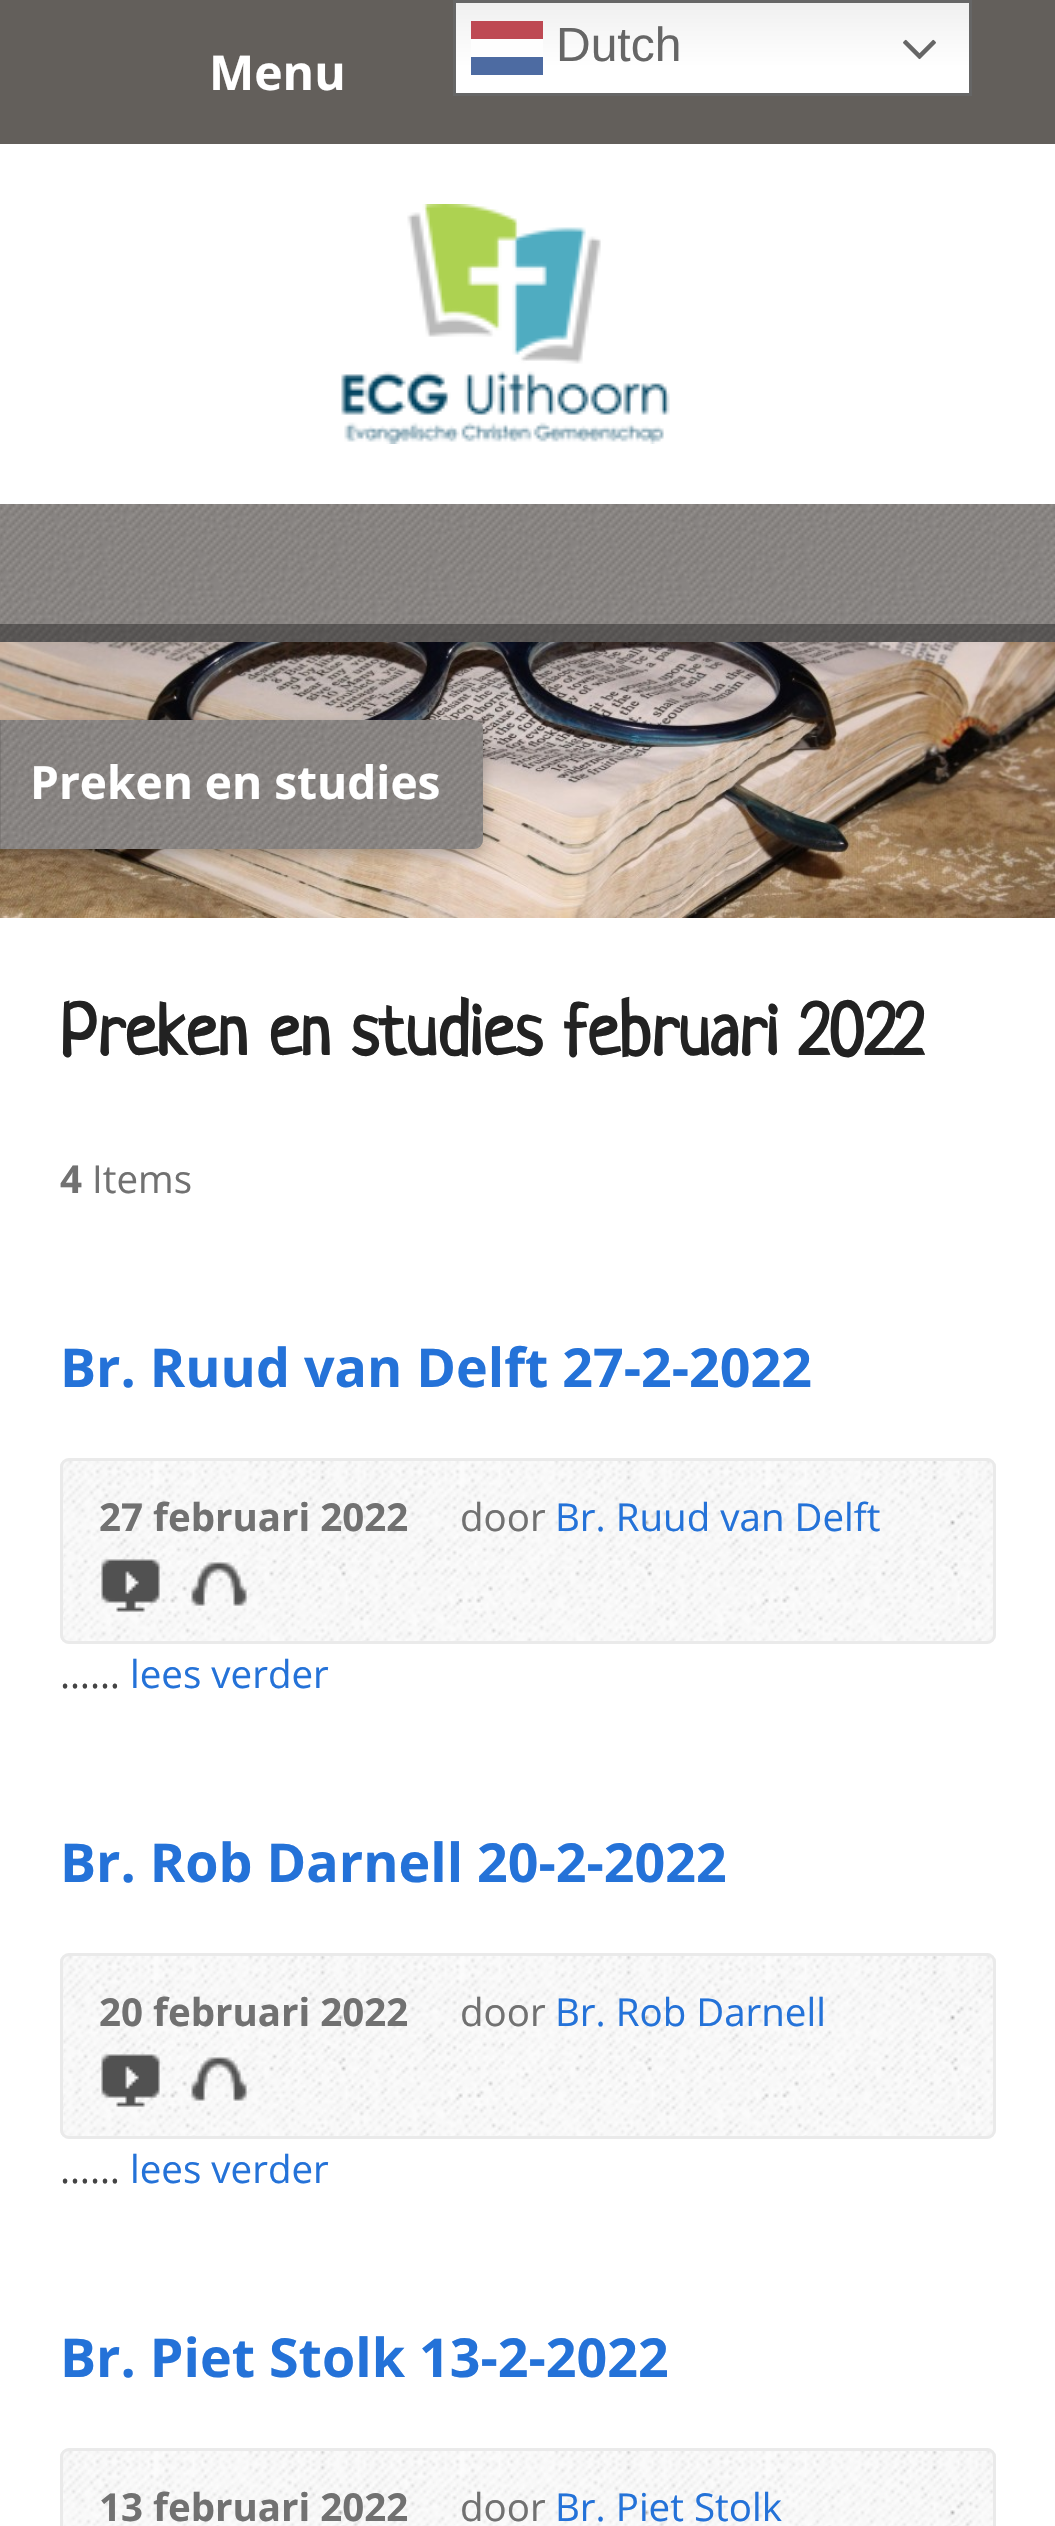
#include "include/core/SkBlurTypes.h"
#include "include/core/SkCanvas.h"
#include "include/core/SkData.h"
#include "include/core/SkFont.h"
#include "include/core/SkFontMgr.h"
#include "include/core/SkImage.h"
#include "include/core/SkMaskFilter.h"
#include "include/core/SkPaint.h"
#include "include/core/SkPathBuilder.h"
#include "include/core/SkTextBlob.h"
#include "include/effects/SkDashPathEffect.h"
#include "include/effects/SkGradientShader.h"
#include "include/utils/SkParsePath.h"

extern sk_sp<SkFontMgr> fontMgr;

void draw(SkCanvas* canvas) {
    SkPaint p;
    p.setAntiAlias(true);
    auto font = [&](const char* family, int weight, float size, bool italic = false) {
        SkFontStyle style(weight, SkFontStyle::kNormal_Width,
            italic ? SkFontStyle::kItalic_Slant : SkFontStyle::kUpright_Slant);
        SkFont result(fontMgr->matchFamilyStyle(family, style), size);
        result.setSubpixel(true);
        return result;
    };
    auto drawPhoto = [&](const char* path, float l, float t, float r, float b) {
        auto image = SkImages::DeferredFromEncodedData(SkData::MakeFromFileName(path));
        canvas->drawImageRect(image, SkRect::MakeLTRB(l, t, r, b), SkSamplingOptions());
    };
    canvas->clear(0xFFFFFFFF);
    p.setColor(0xFF635F5B);
    canvas->drawRect(SkRect::MakeLTRB(0, 0, 1055, 144), p);
    {
        const SkColor colors[] = {0xFFEFEFEF, 0xFFFFFFFF};
        const float stops[] = {0, 0.7f};
        const SkPoint ends[] = {{713, 0}, {713, 96}};
        p.setShader(SkGradientShader::MakeLinear(ends, colors, stops, 2, SkTileMode::kClamp));
        p.setAlpha(255);
    }
    canvas->drawRect(SkRect::MakeLTRB(456, 3, 969, 93), p);
    {
        const SkColor colors[] = {0xFFFCFCFC, 0xFFFFFFFF};
        const float stops[] = {0, 0.7f};
        const SkPoint ends[] = {{713, 0}, {713, 96}};
        p.setShader(SkGradientShader::MakeLinear(ends, colors, stops, 2, SkTileMode::kClamp));
        p.setAlpha(255);
    }
    canvas->drawRect(SkRect::MakeLTRB(471, 39, 543, 57), p);
    p.setStyle(SkPaint::kStroke_Style);
    p.setStrokeWidth(3);
    p.setShader(nullptr);
    p.setColor(0xFF666666);
    canvas->drawRect(SkRect::MakeLTRB(454.5f, 1.5f, 970.5f, 94.5f), p);
    p.setStyle(SkPaint::kFill_Style);
    p.setColor(0xFFBE4953);
    canvas->drawRect(SkRect::MakeLTRB(471, 21, 543, 39), p);
    auto font1 = font("Liberation Sans", 400, 48);
    p.setColor(0xFF666666);
    canvas->drawString("Dutch", 556, 61, font1, p);
    drawPhoto("media/1.png", 903, 39, 936, 60);
    p.setColor(0xFF4D6BA2);
    canvas->drawRect(SkRect::MakeLTRB(471, 57, 543, 75), p);
    auto font2 = font("Open Sans", 700, 48);
    p.setColor(0xFFFFFFFF);
    canvas->drawString("Menu", 209, 90, font2, p);
    drawPhoto("media/2.png", 341, 204, 670, 444);
    p.setColor(0xFF87827F);
    canvas->drawRect(SkRect::MakeLTRB(0, 504, 1055, 642), p);
    drawPhoto("media/3.png", 0, 504, 1055, 642);
    p.setColor(0x59000000);
    canvas->drawRect(SkRect::MakeLTRB(0, 624, 1055, 642), p);
    drawPhoto("media/4.png", 0, 642, 1055, 918);
    p.setColor(0x3D000000);
    p.setMaskFilter(SkMaskFilter::MakeBlur(kNormal_SkBlurStyle, 7.5f));
    canvas->drawRoundRect(SkRect::MakeLTRB(-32, 726, 483, 855), 9, 9, p);
    p.setMaskFilter(nullptr);
    p.setColor(0xFF87827F);
    canvas->drawRoundRect(SkRect::MakeLTRB(-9, 720, 483, 849), 9, 9, p);
    drawPhoto("media/5.png", 0, 720, 483, 849);
    auto font3 = font("Open Sans", 700, 46);
    p.setColor(0xFFFFFFFF);
    canvas->drawString("Preken en studies", 30, 799, font3, p);
    auto font4 = font("Neucha", 700, 73);
    p.setColor(0xFF222222);
    canvas->drawString("Preken en studies februari 2022", 60, 1055, font4, p);
    auto font5 = font("Open Sans", 700, 38.5f);
    p.setColor(0xFF717171);
    canvas->drawString("4", 60, 1193, font5, p);
    auto font6 = font("Open Sans", 400, 38.5f);
    canvas->drawString("Items", 92, 1193, font6, p);
    auto font7 = font("Open Sans", 700, 53.75f);
    p.setColor(0xFF2472D8);
    canvas->drawString("Br. Ruud van Delft 27-2-2022", 60, 1387, font7, p);
    drawPhoto("media/6.png", 60, 1458, 996, 1644);
    p.setStyle(SkPaint::kStroke_Style);
    p.setColor(0xFFEAEAEA);
    canvas->drawRoundRect(SkRect::MakeLTRB(61.5f, 1459.5f, 994.5f, 1642.5f), 7.5f, 7.5f, p);
    p.setStyle(SkPaint::kFill_Style);
    p.setColor(0xFF717171);
    canvas->drawString("27 februari 2022", 99, 1531, font5, p);
    canvas->drawString("door", 460, 1531, font6, p);
    p.setColor(0xFF2472D8);
    canvas->drawString("Br. Ruud van Delft", 555, 1531, font6, p);
    drawPhoto("media/7.png", 101, 1559, 160, 1612);
    drawPhoto("media/8.png", 191, 1562, 247, 1606);
    p.setColor(0xFF444444);
    canvas->drawString("……", 60, 1688, font6, p);
    p.setColor(0xFF2472D8);
    canvas->drawString("lees verder", 130, 1688, font6, p);
    canvas->drawString("Br. Rob Darnell 20-2-2022", 60, 1882, font7, p);
    drawPhoto("media/6.png", 60, 1953, 996, 2139);
    p.setStyle(SkPaint::kStroke_Style);
    p.setColor(0xFFEAEAEA);
    canvas->drawRoundRect(SkRect::MakeLTRB(61.5f, 1954.5f, 994.5f, 2137.5f), 7.5f, 7.5f, p);
    p.setStyle(SkPaint::kFill_Style);
    p.setColor(0xFF717171);
    canvas->drawString("20 februari 2022", 99, 2026, font5, p);
    canvas->drawString("door", 460, 2026, font6, p);
    p.setColor(0xFF2472D8);
    canvas->drawString("Br. Rob Darnell", 555, 2026, font6, p);
    drawPhoto("media/7.png", 101, 2054, 160, 2107);
    drawPhoto("media/8.png", 191, 2057, 247, 2101);
    p.setColor(0xFF444444);
    canvas->drawString("……", 60, 2183, font6, p);
    p.setColor(0xFF2472D8);
    canvas->drawString("lees verder", 130, 2183, font6, p);
    canvas->drawString("Br. Piet Stolk 13-2-2022", 60, 2377, font7, p);
    drawPhoto("media/9.png", 60, 2448, 996, 2526);
    p.setStyle(SkPaint::kStroke_Style);
    p.setColor(0xFFEAEAEA);
    canvas->drawRoundRect(SkRect::MakeLTRB(61.5f, 2449.5f, 994.5f, 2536.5f), 7.5f, 7.5f, p);
    p.setStyle(SkPaint::kFill_Style);
    p.setColor(0xFF717171);
    canvas->drawString("13 februari 2022", 99, 2521, font5, p);
    canvas->drawString("door", 460, 2521, font6, p);
    p.setColor(0xFF2472D8);
    canvas->drawString("Br. Piet Stolk", 555, 2521, font6, p);
}
